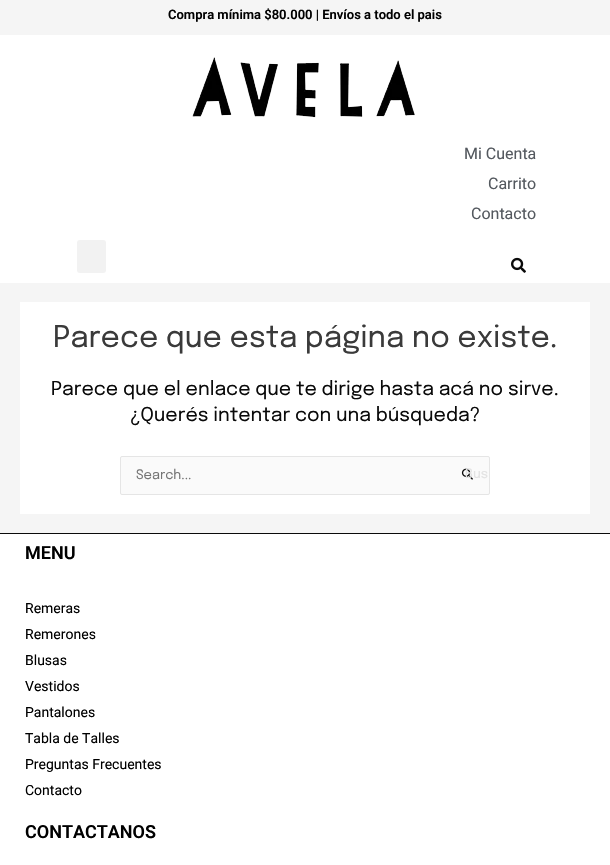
#include "include/core/SkBlurTypes.h"
#include "include/core/SkCanvas.h"
#include "include/core/SkData.h"
#include "include/core/SkFont.h"
#include "include/core/SkFontMgr.h"
#include "include/core/SkImage.h"
#include "include/core/SkMaskFilter.h"
#include "include/core/SkPaint.h"
#include "include/core/SkPathBuilder.h"
#include "include/core/SkTextBlob.h"
#include "include/effects/SkDashPathEffect.h"
#include "include/effects/SkGradientShader.h"
#include "include/utils/SkParsePath.h"

extern sk_sp<SkFontMgr> fontMgr;

void draw(SkCanvas* canvas) {
    SkPaint p;
    p.setAntiAlias(true);
    auto font = [&](const char* family, int weight, float size, bool italic = false) {
        SkFontStyle style(weight, SkFontStyle::kNormal_Width,
            italic ? SkFontStyle::kItalic_Slant : SkFontStyle::kUpright_Slant);
        SkFont result(fontMgr->matchFamilyStyle(family, style), size);
        result.setSubpixel(true);
        return result;
    };
    auto drawPhoto = [&](const char* path, float l, float t, float r, float b) {
        auto image = SkImages::DeferredFromEncodedData(SkData::MakeFromFileName(path));
        canvas->drawImageRect(image, SkRect::MakeLTRB(l, t, r, b), SkSamplingOptions());
    };
    canvas->clear(0xFFF5F5F5);
    auto font1 = font("Roboto", 600, 13);
    p.setColor(0xFF000000);
    canvas->drawString("Compra mínima $80.000 | Envíos a todo el pais", 168, 19, font1, p);
    p.setColor(0xFFFFFFFF);
    canvas->drawRect(SkRect::MakeLTRB(0, 35, 610, 283), p);
    drawPhoto("media/1.png", 192, 57, 415, 118);
    auto font2 = font("Roboto", 400, 16);
    p.setColor(0xFF54595F);
    {
        const struct { const char* s; float x, y; } items[] = {
            {"Mi Cuenta", 464, 159},
            {"Carrito", 488, 189},
            {"Contacto", 471, 219},
        };
        for (auto [s, x, y] : items) {
            canvas->drawString(s, x, y, font2, p);
        }
    }
    drawPhoto("media/2.png", 511, 257, 526, 273);
    p.setColor(0xFFF2F2F2);
    canvas->drawRoundRect(SkRect::MakeLTRB(77, 240, 106, 273), 3, 3, p);
    p.setColor(0xFFFFFFFF);
    canvas->drawRect(SkRect::MakeLTRB(20, 302, 590, 514), p);
    auto font3 = font("Epilogue", 400, 30);
    p.setColor(0xFF3A3A3A);
    canvas->drawString("Parece que esta página no existe.", 53, 347, font3, p);
    auto font4 = font("Epilogue", 400, 19.15f);
    p.setColor(0xFF0A0A0A);
    canvas->drawString("Parece que el enlace que te dirige hasta acá no sirve.", 51, 395, font4, p);
    canvas->drawString("¿Querés intentar con una búsqueda?", 130, 421, font4, p);
    p.setColor(0xFFFAFAFA);
    canvas->drawRoundRect(SkRect::MakeLTRB(120.5f, 456.5f, 489.5f, 494.5f), 1.5f, 1.5f, p);
    p.setStyle(SkPaint::kStroke_Style);
    p.setStrokeWidth(1);
    p.setColor(0xFFE5E5E5);
    canvas->drawRoundRect(SkRect::MakeLTRB(120.5f, 456.5f, 489.5f, 494.5f), 1.5f, 1.5f, p);
    drawPhoto("media/3.png", 461, 468, 473, 480);
    auto font5 = font("Epilogue", 400, 13);
    p.setStyle(SkPaint::kFill_Style);
    p.setColor(0xFF757575);
    canvas->drawString("Search...", 136, 479, font5, p);
    p.setColor(0xFFE3E3E3);
    canvas->drawString("Bus", 465, 478, font5, p);
    p.setColor(0xFFFFFFFF);
    canvas->drawRect(SkRect::MakeLTRB(0, 534, 610, 865), p);
    p.setColor(0xFF0A0A0A);
    canvas->drawRect(SkRect::MakeLTRB(0, 533, 610, 534), p);
    auto font6 = font("Roboto", 600, 18);
    p.setColor(0xFF000000);
    canvas->drawString("MENU", 25, 559, font6, p);
    auto font7 = font("Roboto", 400, 14);
    {
        const struct { const char* s; float x, y; } items[] = {
            {"Remeras", 25, 613},
            {"Remerones", 25, 639},
            {"Blusas", 25, 665},
            {"Vestidos", 25, 691},
            {"Pantalones", 25, 717},
            {"Tabla de Talles", 25, 743},
            {"Preguntas Frecuentes", 25, 769},
            {"Contacto", 25, 795},
        };
        for (auto [s, x, y] : items) {
            canvas->drawString(s, x, y, font7, p);
        }
    }
    canvas->drawString("CONTACTANOS", 25, 838, font6, p);
}
